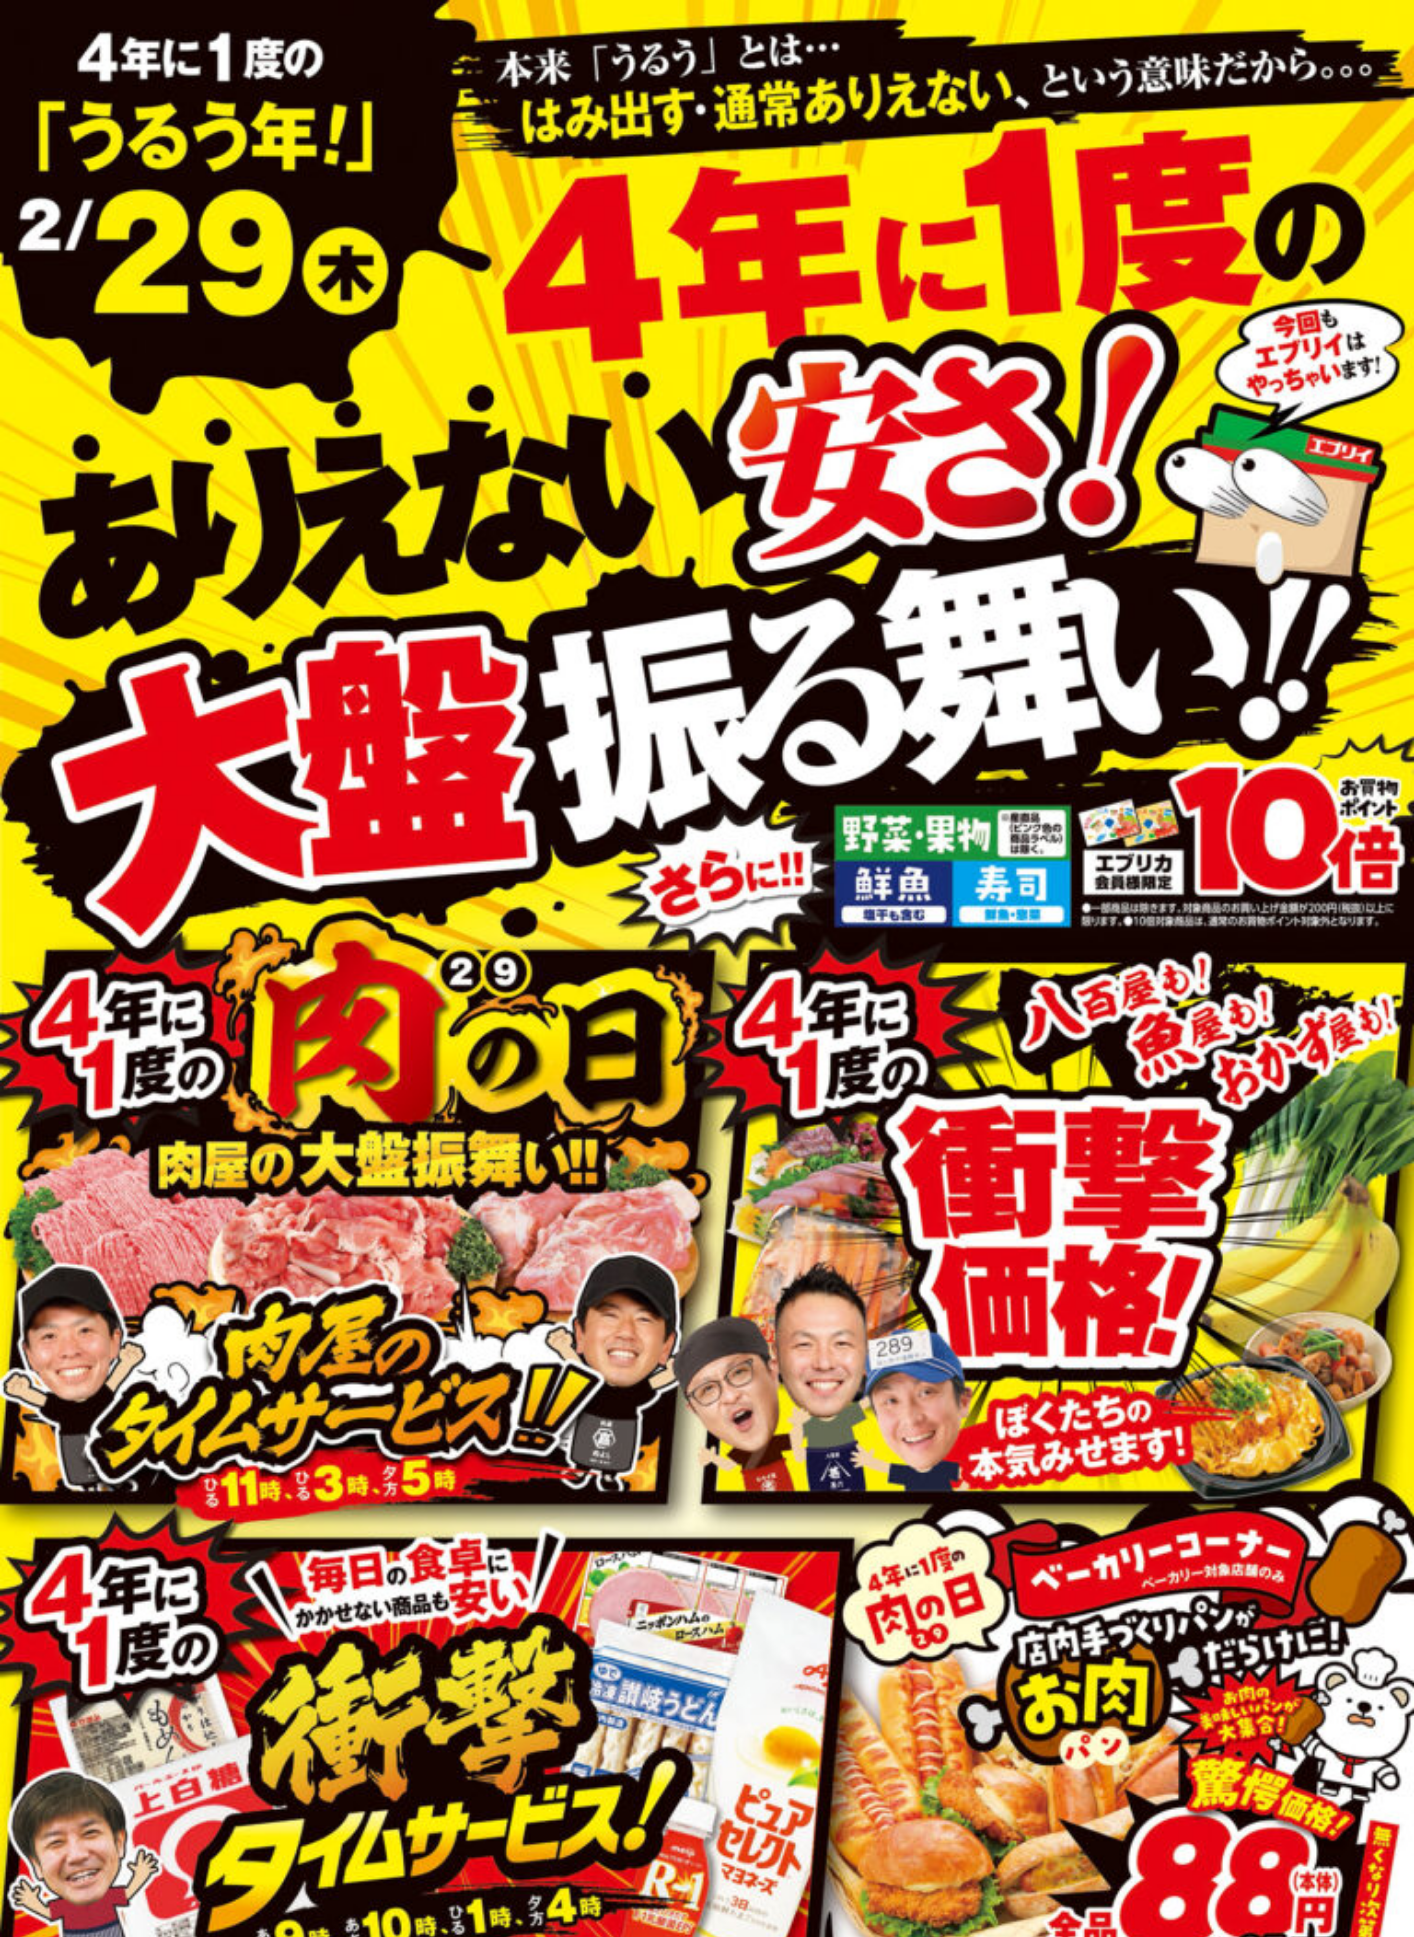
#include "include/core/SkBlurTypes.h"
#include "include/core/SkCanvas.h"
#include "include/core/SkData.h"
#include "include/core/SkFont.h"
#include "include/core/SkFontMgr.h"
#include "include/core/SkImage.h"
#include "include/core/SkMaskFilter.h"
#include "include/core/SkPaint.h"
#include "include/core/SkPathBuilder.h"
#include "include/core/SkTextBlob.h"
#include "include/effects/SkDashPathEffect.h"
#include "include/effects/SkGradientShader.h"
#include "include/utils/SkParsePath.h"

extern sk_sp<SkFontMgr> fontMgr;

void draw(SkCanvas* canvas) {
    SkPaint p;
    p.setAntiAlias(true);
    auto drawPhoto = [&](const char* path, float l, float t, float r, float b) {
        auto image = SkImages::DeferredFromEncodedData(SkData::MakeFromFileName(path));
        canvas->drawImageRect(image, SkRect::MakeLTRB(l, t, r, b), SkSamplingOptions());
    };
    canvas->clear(0xFFFFFFFF);
    drawPhoto("media/1.png", 0, 0, 1414, 1937);
}
